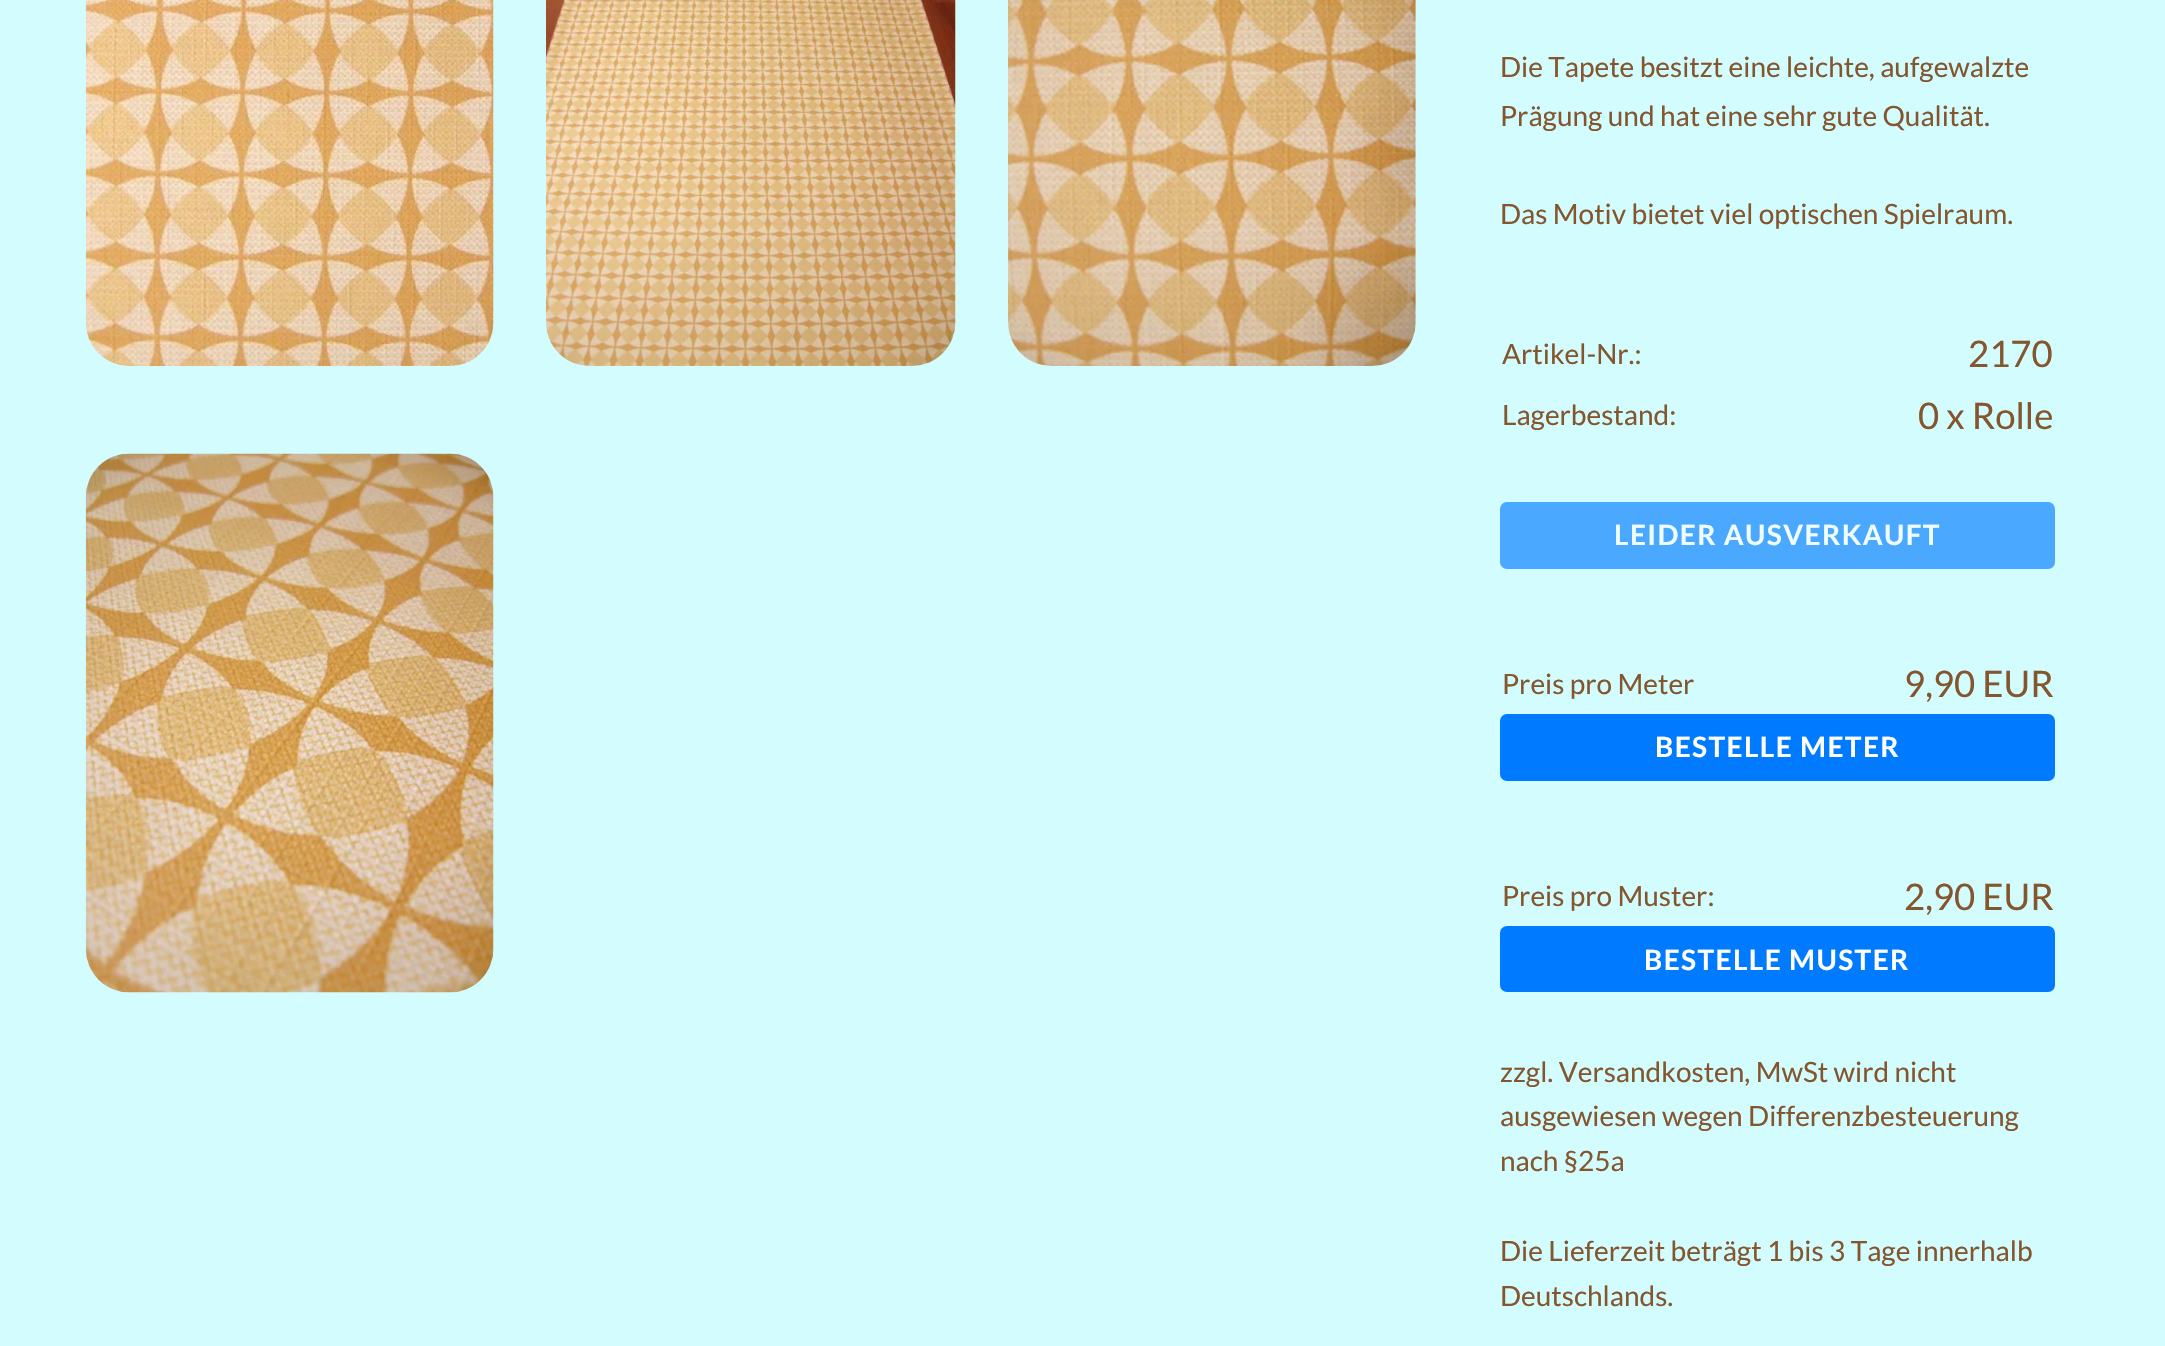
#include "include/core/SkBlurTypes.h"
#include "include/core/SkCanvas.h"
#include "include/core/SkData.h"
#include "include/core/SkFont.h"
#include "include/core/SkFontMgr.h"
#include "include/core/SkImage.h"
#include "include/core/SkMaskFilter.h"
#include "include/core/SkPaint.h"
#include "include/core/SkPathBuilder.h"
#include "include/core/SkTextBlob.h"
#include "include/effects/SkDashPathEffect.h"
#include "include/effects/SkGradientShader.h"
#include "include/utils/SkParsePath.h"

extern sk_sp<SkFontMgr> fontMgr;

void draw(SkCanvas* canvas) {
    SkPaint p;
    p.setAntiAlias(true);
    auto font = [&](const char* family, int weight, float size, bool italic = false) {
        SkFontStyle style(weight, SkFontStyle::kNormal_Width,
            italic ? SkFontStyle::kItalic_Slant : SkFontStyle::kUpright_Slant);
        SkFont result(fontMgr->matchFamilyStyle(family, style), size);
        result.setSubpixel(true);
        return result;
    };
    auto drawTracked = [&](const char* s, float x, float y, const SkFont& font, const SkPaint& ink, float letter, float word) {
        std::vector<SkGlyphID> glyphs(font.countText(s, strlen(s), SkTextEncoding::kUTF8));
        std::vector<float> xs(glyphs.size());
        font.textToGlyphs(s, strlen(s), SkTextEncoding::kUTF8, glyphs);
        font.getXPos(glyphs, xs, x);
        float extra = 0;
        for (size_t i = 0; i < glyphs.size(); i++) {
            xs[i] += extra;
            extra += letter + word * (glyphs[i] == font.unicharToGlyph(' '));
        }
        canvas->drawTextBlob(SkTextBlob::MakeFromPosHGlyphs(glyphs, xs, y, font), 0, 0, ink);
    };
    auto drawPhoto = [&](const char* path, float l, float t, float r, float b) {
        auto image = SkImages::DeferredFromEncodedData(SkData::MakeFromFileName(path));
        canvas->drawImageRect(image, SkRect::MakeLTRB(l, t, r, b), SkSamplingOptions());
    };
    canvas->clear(0xFFD3FCFE);
    drawPhoto("media/1.png", 85, 0, 494, 366);
    drawPhoto("media/2.png", 546, 0, 956, 366);
    drawPhoto("media/3.png", 1008, 0, 1416, 366);
    drawPhoto("media/4.png", 85, 453, 494, 993);
    auto font1 = font("Lato", 400, 28);
    p.setColor(0xFF84562E);
    {
        const struct { const char* s; float x, y; } items[] = {
            {"Die Tapete besitzt eine leichte, aufgewalzte", 1500, 77},
            {"Prägung und hat eine sehr gute Qualität.", 1500, 126},
            {"Das Motiv bietet viel optischen Spielraum.", 1500, 224},
            {"Artikel-Nr.:", 1502, 364},
        };
        for (auto [s, x, y] : items) {
            canvas->drawString(s, x, y, font1, p);
        }
    }
    auto font2 = font("Lato", 400, 36.5f);
    canvas->drawString("2170", 1968, 367, font2, p);
    canvas->drawString("Lagerbestand:", 1502, 425, font1, p);
    canvas->drawString("0 x Rolle", 1918, 429, font2, p);
    p.setColor(0xFF4AA8FF);
    canvas->drawRoundRect(SkRect::MakeLTRB(1501, 503, 2054, 568), 6, 6, p);
    p.setStyle(SkPaint::kStroke_Style);
    p.setStrokeWidth(2);
    canvas->drawRoundRect(SkRect::MakeLTRB(1501, 503, 2054, 568), 6, 6, p);
    auto font3 = font("Lato", 700, 28);
    p.setStyle(SkPaint::kFill_Style);
    p.setColor(0xFFF0FEFF);
    drawTracked("LEIDER AUSVERKAUFT", 1614, 545, font3, p, 1.4f, 0);
    p.setColor(0xFF84562E);
    canvas->drawString("Preis pro Meter", 1502, 694, font1, p);
    canvas->drawString("9,90 EUR", 1904, 697, font2, p);
    p.setColor(0xFF007BFF);
    canvas->drawRoundRect(SkRect::MakeLTRB(1501, 715, 2054, 780), 6, 6, p);
    p.setStyle(SkPaint::kStroke_Style);
    canvas->drawRoundRect(SkRect::MakeLTRB(1501, 715, 2054, 780), 6, 6, p);
    p.setStyle(SkPaint::kFill_Style);
    p.setColor(0xFFFFFFFF);
    drawTracked("BESTELLE METER", 1655, 757, font3, p, 1.4f, 0);
    p.setColor(0xFF84562E);
    canvas->drawString("Preis pro Muster:", 1502, 906, font1, p);
    canvas->drawString("2,90 EUR", 1904, 910, font2, p);
    p.setColor(0xFF007BFF);
    canvas->drawRoundRect(SkRect::MakeLTRB(1501, 927, 2054, 991), 6, 6, p);
    p.setStyle(SkPaint::kStroke_Style);
    canvas->drawRoundRect(SkRect::MakeLTRB(1501, 927, 2054, 991), 6, 6, p);
    p.setStyle(SkPaint::kFill_Style);
    p.setColor(0xFFFFFFFF);
    drawTracked("BESTELLE MUSTER", 1644, 970, font3, p, 1.4f, 0);
    p.setColor(0xFF84562E);
    {
        const struct { const char* s; float x, y; } items[] = {
            {"zzgl. Versandkosten, MwSt wird nicht", 1500, 1082},
            {"ausgewiesen wegen Differenzbesteuerung", 1500, 1126},
            {"nach §25a", 1500, 1171},
            {"Die Lieferzeit beträgt 1 bis 3 Tage innerhalb", 1500, 1261},
            {"Deutschlands.", 1500, 1306},
        };
        for (auto [s, x, y] : items) {
            canvas->drawString(s, x, y, font1, p);
        }
    }
}
